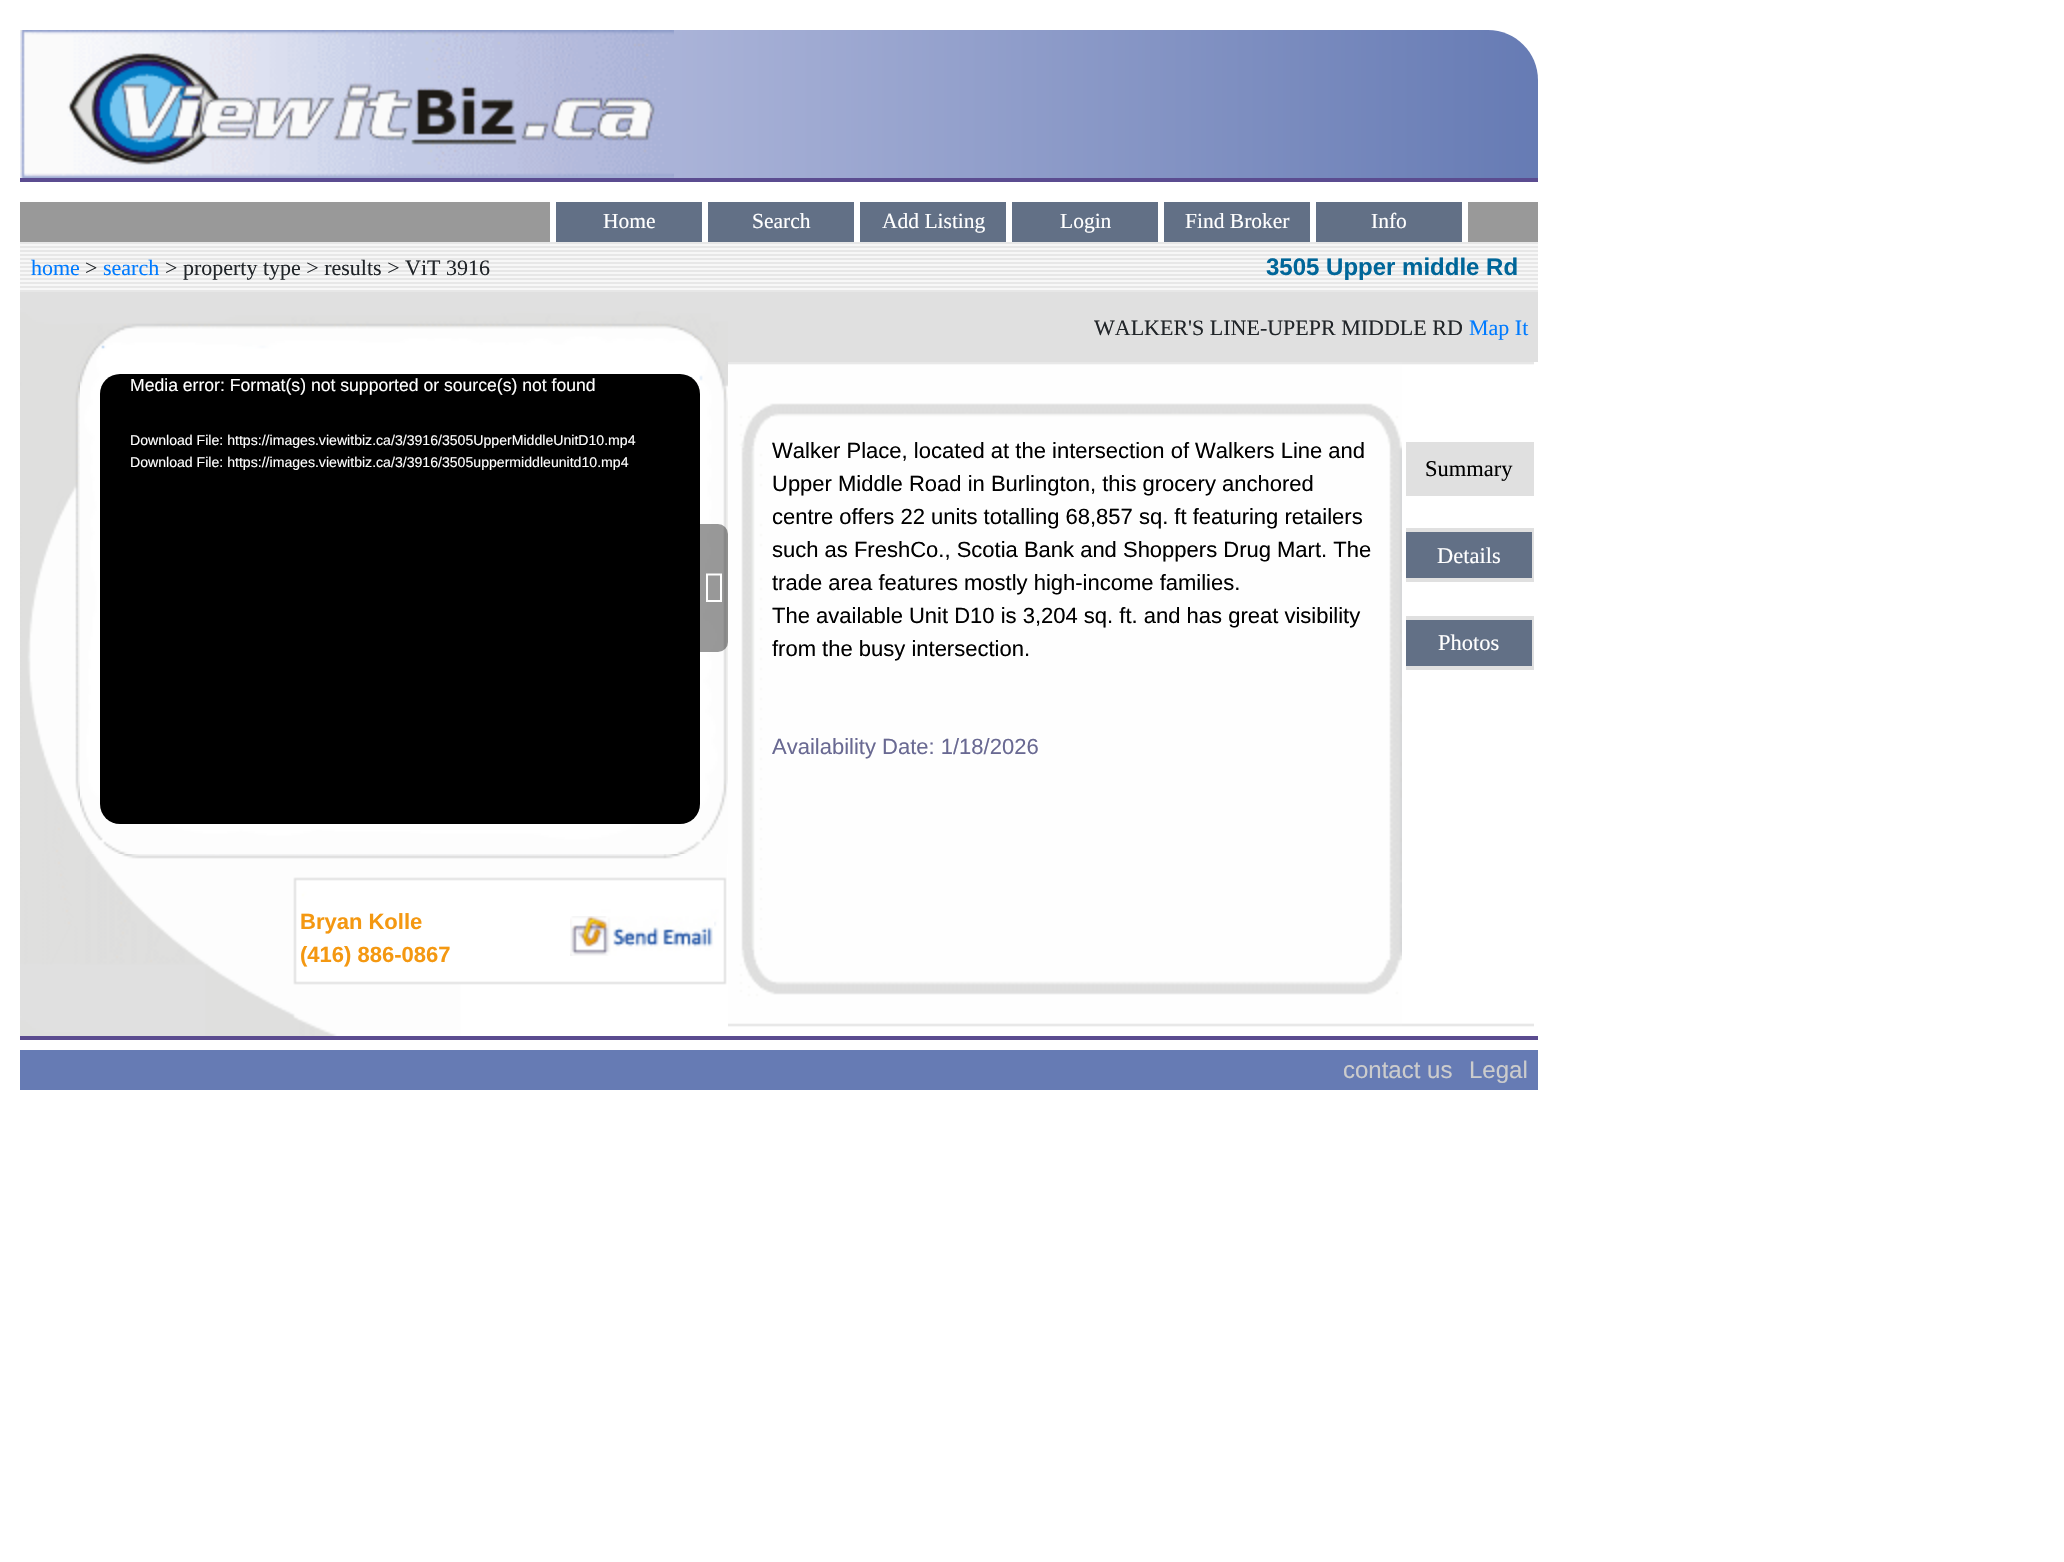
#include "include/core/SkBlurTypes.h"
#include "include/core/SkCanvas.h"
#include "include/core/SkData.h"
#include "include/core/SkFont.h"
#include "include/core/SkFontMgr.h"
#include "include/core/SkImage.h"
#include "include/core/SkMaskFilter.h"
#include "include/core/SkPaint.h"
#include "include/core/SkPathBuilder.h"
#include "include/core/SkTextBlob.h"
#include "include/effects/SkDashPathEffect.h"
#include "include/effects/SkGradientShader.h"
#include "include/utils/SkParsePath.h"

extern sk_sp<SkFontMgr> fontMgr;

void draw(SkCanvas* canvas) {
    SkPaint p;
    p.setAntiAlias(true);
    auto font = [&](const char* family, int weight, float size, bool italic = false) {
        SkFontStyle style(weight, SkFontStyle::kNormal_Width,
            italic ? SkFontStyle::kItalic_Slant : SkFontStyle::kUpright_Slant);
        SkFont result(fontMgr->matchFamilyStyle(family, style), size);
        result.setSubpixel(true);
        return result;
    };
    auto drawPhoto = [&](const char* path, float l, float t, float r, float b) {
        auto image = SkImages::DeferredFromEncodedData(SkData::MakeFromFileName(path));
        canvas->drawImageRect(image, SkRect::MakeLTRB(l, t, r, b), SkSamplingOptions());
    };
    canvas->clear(0xFFFFFFFF);
    drawPhoto("media/1.png", 20, 30, 674, 178);
    {
        const SkColor colors[] = {0xFFAAB3D8, 0xFF667BB4};
        const float stops[] = {0, 1};
        const SkPoint ends[] = {{674, 104}, {1538, 104}};
        p.setShader(SkGradientShader::MakeLinear(ends, colors, stops, 2, SkTileMode::kClamp));
        p.setAlpha(255);
    }
    canvas->drawPath(SkPathBuilder().moveTo(674, 30).lineTo(1488, 30).cubicTo(1515.5f, 30, 1538, 52.5f, 1538, 80).lineTo(1538, 178).lineTo(674, 178).close().detach(), p);
    p.setShader(nullptr);
    {
        const struct { float l, t, r, b; SkColor color; } items[] = {
            {20, 178, 1538, 182, 0xFF5B4C90},
            {20, 202, 550, 242, 0xFF999999},
            {556, 202, 702, 242, 0xFF627086},
        };
        for (auto [l, t, r, b, color] : items) {
            p.setColor(color);
            canvas->drawRect(SkRect::MakeLTRB(l, t, r, b), p);
        }
    }
    auto font1 = font("Liberation Serif", 400, 21.5f);
    p.setColor(0xFFFFFFFF);
    canvas->drawString("Home", 603, 228, font1, p);
    p.setColor(0xFF627086);
    canvas->drawRect(SkRect::MakeLTRB(708, 202, 854, 242), p);
    p.setColor(0xFFFFFFFF);
    canvas->drawString("Search", 752, 228, font1, p);
    p.setColor(0xFF627086);
    canvas->drawRect(SkRect::MakeLTRB(860, 202, 1006, 242), p);
    p.setColor(0xFFFFFFFF);
    canvas->drawString("Add Listing", 882, 228, font1, p);
    p.setColor(0xFF627086);
    canvas->drawRect(SkRect::MakeLTRB(1012, 202, 1158, 242), p);
    p.setColor(0xFFFFFFFF);
    canvas->drawString("Login", 1060, 228, font1, p);
    p.setColor(0xFF627086);
    canvas->drawRect(SkRect::MakeLTRB(1164, 202, 1310, 242), p);
    p.setColor(0xFFFFFFFF);
    canvas->drawString("Find Broker", 1185, 228, font1, p);
    p.setColor(0xFF627086);
    canvas->drawRect(SkRect::MakeLTRB(1316, 202, 1462, 242), p);
    p.setColor(0xFFFFFFFF);
    canvas->drawString("Info", 1371, 228, font1, p);
    p.setColor(0xFF999999);
    canvas->drawRect(SkRect::MakeLTRB(1468, 202, 1538, 242), p);
    drawPhoto("media/2.png", 20, 242, 720, 292);
    auto font2 = font("Liberation Serif", 400, 22);
    p.setColor(0xFF007BFF);
    canvas->drawString("home", 31, 275, font2, p);
    p.setColor(0xFF212529);
    canvas->drawString(">", 85, 275, font2, p);
    p.setColor(0xFF007BFF);
    canvas->drawString("search", 103, 275, font2, p);
    p.setColor(0xFF212529);
    canvas->drawString("> property type > results > ViT 3916", 165, 275, font2, p);
    drawPhoto("media/3.png", 720, 242, 1538, 292);
    auto font3 = font("Liberation Sans", 700, 24);
    p.setColor(0xFF006699);
    canvas->drawString("3505 Upper middle Rd", 1266, 275, font3, p);
    drawPhoto("media/4.png", 20, 292, 80, 1036);
    p.setColor(0xFFE0E0E0);
    canvas->drawRect(SkRect::MakeLTRB(728, 292, 1538, 362), p);
    p.setColor(0xFF212529);
    canvas->drawString("WALKER'S LINE-UPEPR MIDDLE RD", 1094, 335, font2, p);
    p.setColor(0xFF007BFF);
    canvas->drawString("Map It", 1469, 335, font2, p);
    drawPhoto("media/5.png", 80, 292, 728, 854);
    p.setColor(0xFF000000);
    canvas->drawRoundRect(SkRect::MakeLTRB(100, 374, 700, 824), 20, 20, p);
    auto font4 = font("Liberation Sans", 400, 17.6f);
    p.setColor(0xFFFFFFFF);
    canvas->drawString("Media error: Format(s) not supported or source(s) not found", 130, 391, font4, p);
    auto font5 = font("Liberation Sans", 400, 14.1f);
    canvas->drawString("Download File: https://images.viewitbiz.ca/3/3916/3505UpperMiddleUnitD10.mp4", 130, 445, font5, p);
    canvas->drawString("Download File: https://images.viewitbiz.ca/3/3916/3505uppermiddleunitd10.mp4", 130, 467, font5, p);
    p.setColor(0x66000000);
    canvas->drawRoundRect(SkRect::MakeLTRB(690, 524, 728, 652), 10, 10, p);
    p.setColor(0xFFFFFFFF);
    canvas->drawPath(SkPathBuilder().moveTo(706, 602).lineTo(706, 573.5f).lineTo(722, 573.5f).lineTo(722, 602).close().moveTo(708, 600).lineTo(720, 600).lineTo(720, 575.5f).lineTo(708, 575.5f).close().detach(), p);
    drawPhoto("media/6.png", 728, 362, 1402, 1027);
    canvas->drawRect(SkRect::MakeLTRB(999, 441, 1023, 445), p);
    auto font6 = font("Liberation Sans", 400, 22);
    p.setColor(0xFF000000);
    {
        const struct { const char* s; float x, y; } items[] = {
            {"Walker Place, located at the intersection of Walkers Line and", 772, 458},
            {"Upper Middle Road in Burlington, this grocery anchored", 772, 491},
            {"centre offers 22 units totalling 68,857 sq. ft featuring retailers", 772, 524},
            {"such as FreshCo., Scotia Bank and Shoppers Drug Mart. The", 772, 557},
            {"trade area features mostly high-income families.", 772, 590},
            {"The available Unit D10 is 3,204 sq. ft. and has great visibility", 772, 623},
            {"from the busy intersection.", 772, 656},
        };
        for (auto [s, x, y] : items) {
            canvas->drawString(s, x, y, font6, p);
        }
    }
    p.setColor(0xFF696992);
    canvas->drawString("Availability Date: 1/18/2026", 772, 754, font6, p);
    drawPhoto("media/7.png", 1402, 362, 1534, 1027);
    p.setColor(0xFFE0E0E0);
    canvas->drawRect(SkRect::MakeLTRB(1406, 442, 1534, 496), p);
    auto font7 = font("Liberation Serif", 400, 22.5f);
    p.setColor(0xFF000000);
    canvas->drawString("Summary", 1425, 476, font7, p);
    p.setColor(0xFFE0E0E0);
    canvas->drawRect(SkRect::MakeLTRB(1406, 528, 1534, 582), p);
    p.setColor(0xFF627086);
    canvas->drawRect(SkRect::MakeLTRB(1406, 532, 1532, 578), p);
    p.setColor(0xFFFFFFFF);
    canvas->drawString("Details", 1437, 563, font7, p);
    p.setColor(0xFFE0E0E0);
    canvas->drawRect(SkRect::MakeLTRB(1406, 616, 1534, 670), p);
    p.setColor(0xFF627086);
    canvas->drawRect(SkRect::MakeLTRB(1406, 620, 1532, 666), p);
    p.setColor(0xFFFFFFFF);
    canvas->drawString("Photos", 1438, 650, font7, p);
    drawPhoto("media/8.png", 80, 854, 727, 1036);
    auto font8 = font("Liberation Sans", 700, 22);
    p.setColor(0xFFF49811);
    canvas->drawString("Bryan Kolle", 300, 929, font8, p);
    canvas->drawString("(416) 886-0867", 300, 962, font8, p);
    drawPhoto("media/9.png", 570, 916, 714, 956);
    p.setColor(0xFF5B4C90);
    canvas->drawRect(SkRect::MakeLTRB(20, 1036, 1538, 1040), p);
    p.setColor(0xFF667BB4);
    canvas->drawRect(SkRect::MakeLTRB(20, 1050, 1538, 1090), p);
    auto font9 = font("Liberation Sans", 400, 24);
    p.setColor(0xFFCCCCCC);
    canvas->drawString("contact us", 1343, 1078, font9, p);
    canvas->drawString("Legal", 1469, 1078, font9, p);
}
